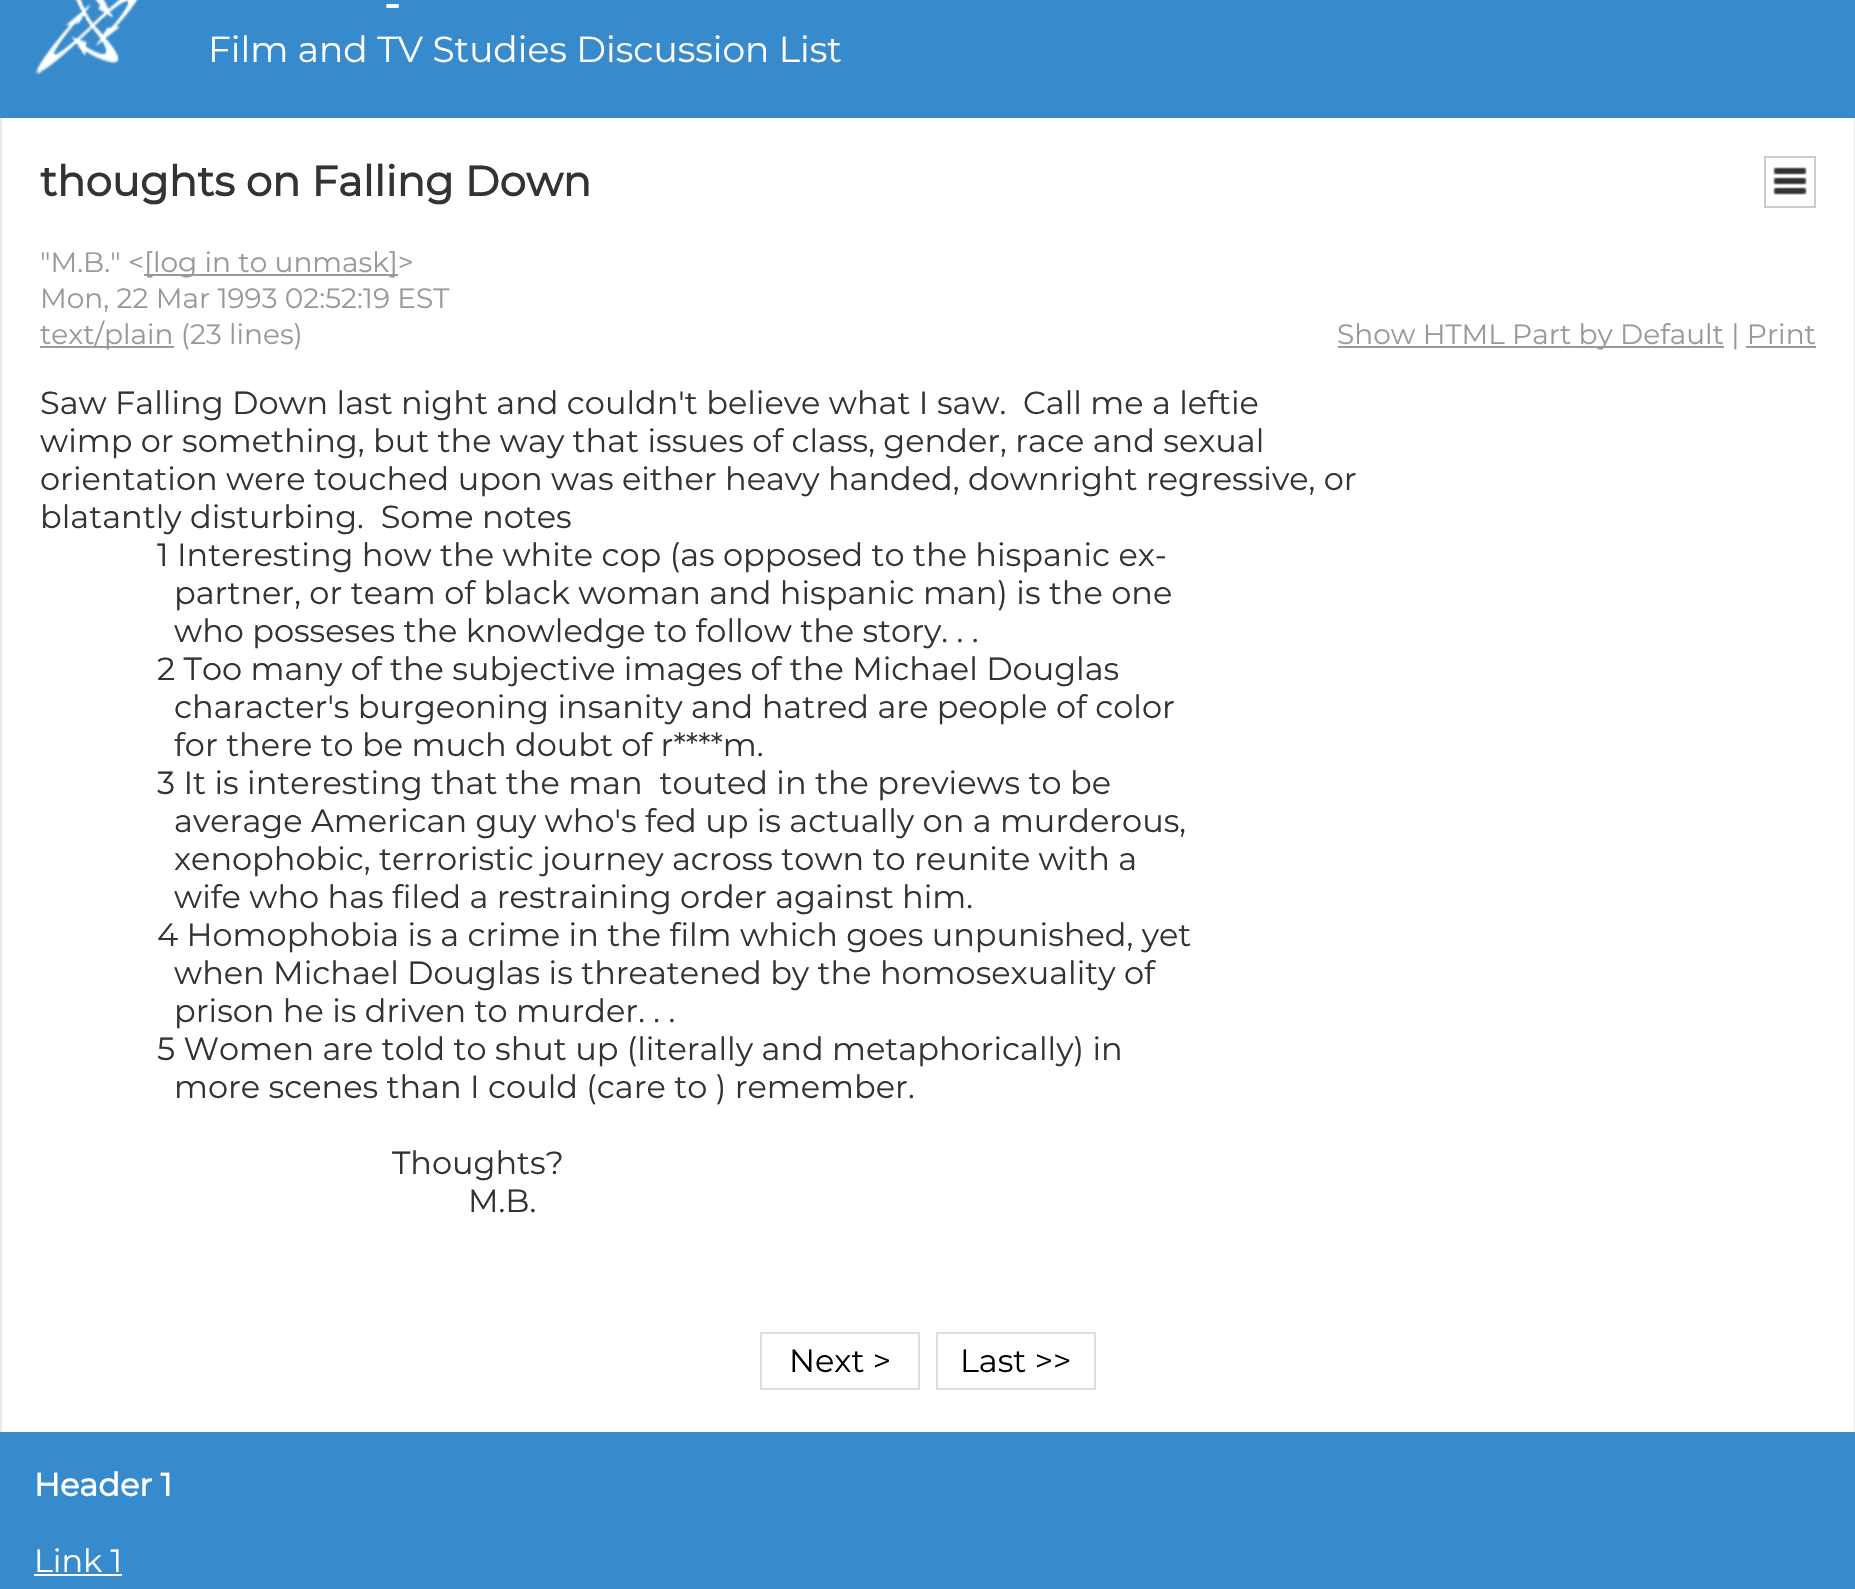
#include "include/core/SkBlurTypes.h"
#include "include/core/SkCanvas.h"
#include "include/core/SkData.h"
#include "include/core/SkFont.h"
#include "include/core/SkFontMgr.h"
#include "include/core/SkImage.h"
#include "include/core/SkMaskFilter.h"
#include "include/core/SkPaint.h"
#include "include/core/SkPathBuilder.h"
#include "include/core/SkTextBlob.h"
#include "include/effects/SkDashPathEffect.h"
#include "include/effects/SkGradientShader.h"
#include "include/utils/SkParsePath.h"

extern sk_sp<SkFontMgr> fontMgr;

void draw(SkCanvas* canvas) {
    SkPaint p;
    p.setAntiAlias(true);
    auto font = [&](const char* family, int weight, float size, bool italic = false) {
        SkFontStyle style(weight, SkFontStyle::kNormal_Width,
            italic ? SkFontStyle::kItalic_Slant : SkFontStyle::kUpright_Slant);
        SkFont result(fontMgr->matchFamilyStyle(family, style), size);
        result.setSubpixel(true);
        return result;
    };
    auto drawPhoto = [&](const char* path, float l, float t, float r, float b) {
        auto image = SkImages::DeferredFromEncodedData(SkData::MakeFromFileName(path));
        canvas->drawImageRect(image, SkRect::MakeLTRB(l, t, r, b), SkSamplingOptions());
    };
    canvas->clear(0xFF378ACC);
    drawPhoto("media/1.png", 35, 0, 139, 75);
    auto font1 = font("Montserrat", 700, 42);
    p.setColor(0xFFFFFFFF);
    canvas->drawString("-", 384, 18, font1, p);
    auto font2 = font("Montserrat", 100, 36);
    canvas->drawString("Film and TV Studies Discussion List", 208, 62, font2, p);
    {
        const struct { float l, t, r, b; SkColor color; } items[] = {
            {2, 118, 1854, 1432, 0xFFFFFFFF},
            {1854, 118, 1855, 1432, 0xFFEAEAEA},
            {0, 118, 2, 1432, 0xFFEAEAEA},
        };
        for (auto [l, t, r, b, color] : items) {
            p.setColor(color);
            canvas->drawRect(SkRect::MakeLTRB(l, t, r, b), p);
        }
    }
    p.setStyle(SkPaint::kStroke_Style);
    p.setStrokeWidth(2);
    p.setColor(0xFFCCCCCC);
    canvas->drawRect(SkRect::MakeLTRB(1765, 157, 1815, 207), p);
    drawPhoto("media/2.png", 1773, 167, 1807, 195);
    p.setStyle(SkPaint::kFill_Style);
    p.setColor(0xFF333333);
    canvas->drawString("thoughts on Falling Down", 40, 196, font1, p);
    auto font3 = font("Montserrat", 100, 28);
    p.setColor(0xFF999999);
    canvas->drawString("\"M.B.\" <", 40, 272, font3, p);
    canvas->drawRect(SkRect::MakeLTRB(144, 274, 398, 276), p);
    canvas->drawString("[log in to unmask]>", 144, 272, font3, p);
    canvas->drawString("Mon, 22 Mar 1993 02:52:19 EST", 40, 308, font3, p);
    canvas->drawRect(SkRect::MakeLTRB(40, 346, 174, 348), p);
    canvas->drawString("text/plain (23 lines)", 40, 344, font3, p);
    canvas->drawRect(SkRect::MakeLTRB(1338, 346, 1724, 348), p);
    canvas->drawString("Show HTML Part by Default | Print", 1337, 344, font3, p);
    canvas->drawRect(SkRect::MakeLTRB(1746, 346, 1816, 348), p);
    auto font4 = font("Montserrat", 100, 32);
    p.setColor(0xFF333333);
    {
        const struct { const char* s; float x, y; } items[] = {
            {"Saw Falling Down last night and couldn't believe what I saw.  Call me a leftie", 40, 414},
            {"wimp or something, but the way that issues of class, gender, race and sexual", 40, 452},
            {"orientation were touched upon was either heavy handed, downright regressive, or", 40, 490},
            {"blatantly disturbing.  Some notes", 40, 528},
            {"1 Interesting how the white cop (as opposed to the hispanic ex-", 157, 566},
            {"partner, or team of black woman and hispanic man) is the one", 174, 604},
            {"who posseses the knowledge to follow the story. . .", 174, 642},
            {"2 Too many of the subjective images of the Michael Douglas", 157, 680},
            {"character's burgeoning insanity and hatred are people of color", 174, 718},
            {"for there to be much doubt of r****m.", 174, 756},
            {"3 It is interesting that the man  touted in the previews to be", 157, 794},
            {"average American guy who's fed up is actually on a murderous,", 174, 832},
            {"xenophobic, terroristic journey across town to reunite with a", 174, 870},
            {"wife who has filed a restraining order against him.", 174, 908},
            {"4 Homophobia is a crime in the film which goes unpunished, yet", 157, 946},
            {"when Michael Douglas is threatened by the homosexuality of", 174, 984},
            {"prison he is driven to murder. . .", 174, 1022},
            {"5 Women are told to shut up (literally and metaphorically) in", 157, 1060},
            {"more scenes than I could (care to ) remember.", 174, 1098},
            {"Thoughts?", 392, 1174},
            {"M.B.", 468, 1212},
        };
        for (auto [s, x, y] : items) {
            canvas->drawString(s, x, y, font4, p);
        }
    }
    p.setStyle(SkPaint::kStroke_Style);
    p.setColor(0xFFDEDEDE);
    canvas->drawRect(SkRect::MakeLTRB(761, 1333, 919, 1389), p);
    p.setStyle(SkPaint::kFill_Style);
    p.setColor(0xFF000000);
    canvas->drawString("Next >", 789, 1372, font4, p);
    p.setStyle(SkPaint::kStroke_Style);
    p.setColor(0xFFDEDEDE);
    canvas->drawRect(SkRect::MakeLTRB(937, 1333, 1095, 1389), p);
    p.setStyle(SkPaint::kFill_Style);
    p.setColor(0xFF000000);
    canvas->drawString("Last >>", 960, 1372, font4, p);
    auto font5 = font("Montserrat", 700, 32);
    p.setColor(0xFFFFFFFF);
    canvas->drawString("Header 1", 34, 1496, font5, p);
    canvas->drawString("Link 1", 34, 1572, font4, p);
    canvas->drawRect(SkRect::MakeLTRB(34, 1574, 122, 1576), p);
}
